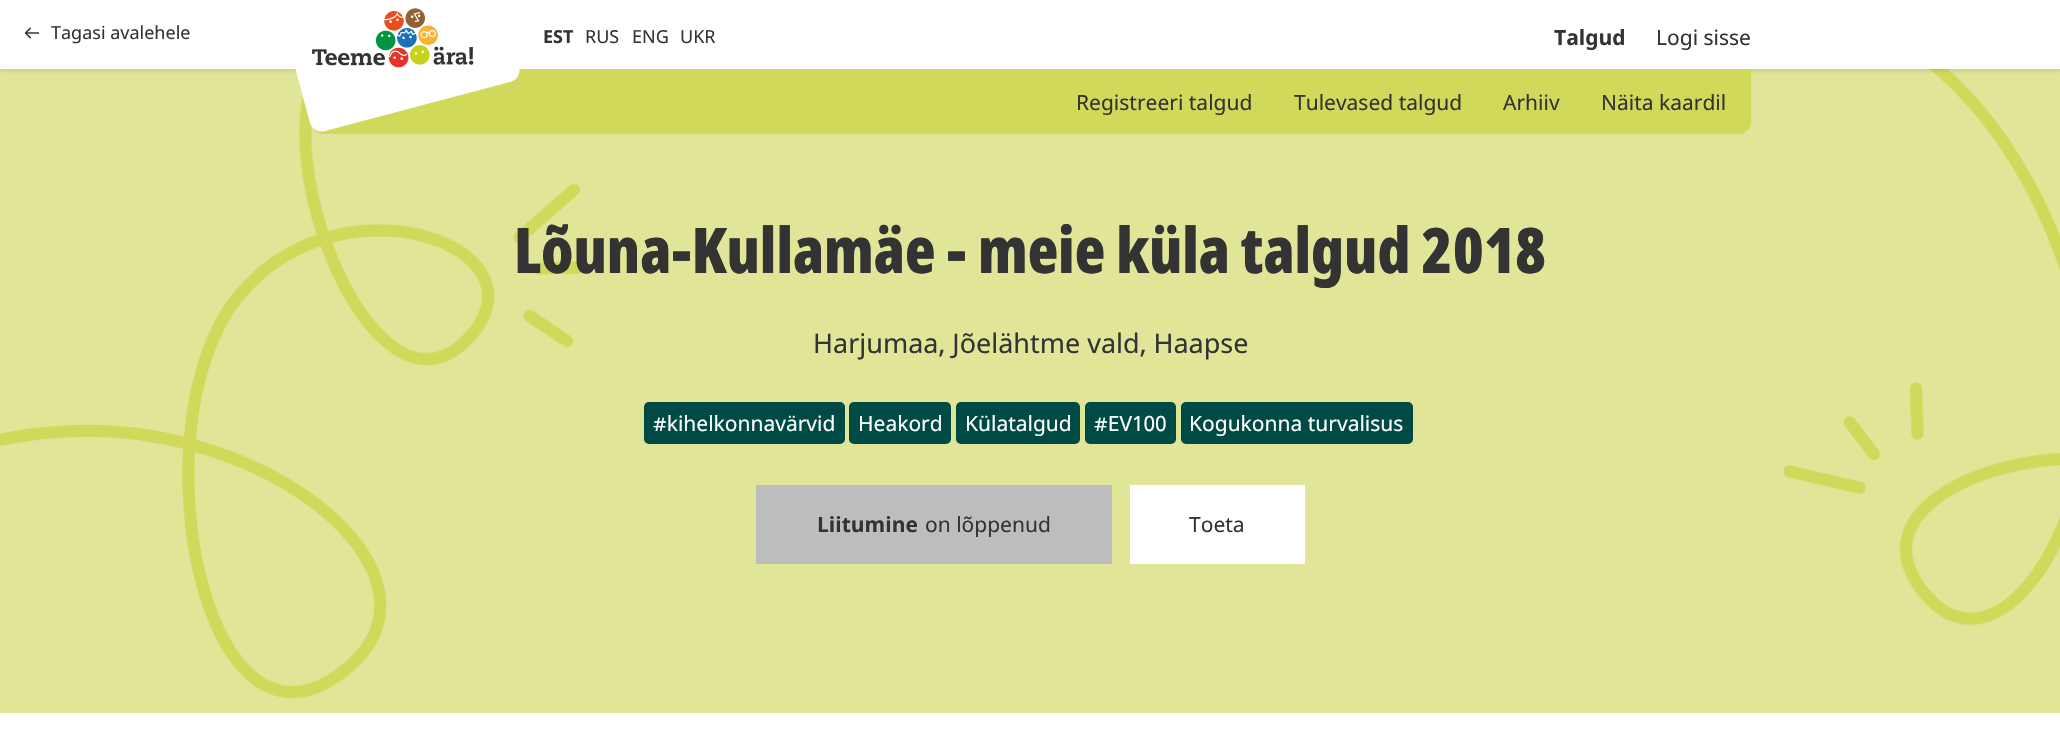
#include "include/core/SkBlurTypes.h"
#include "include/core/SkCanvas.h"
#include "include/core/SkData.h"
#include "include/core/SkFont.h"
#include "include/core/SkFontMgr.h"
#include "include/core/SkImage.h"
#include "include/core/SkMaskFilter.h"
#include "include/core/SkPaint.h"
#include "include/core/SkPathBuilder.h"
#include "include/core/SkTextBlob.h"
#include "include/effects/SkDashPathEffect.h"
#include "include/effects/SkGradientShader.h"
#include "include/utils/SkParsePath.h"

extern sk_sp<SkFontMgr> fontMgr;

void draw(SkCanvas* canvas) {
    SkPaint p;
    p.setAntiAlias(true);
    auto font = [&](const char* family, int weight, float size, bool italic = false) {
        SkFontStyle style(weight, SkFontStyle::kNormal_Width,
            italic ? SkFontStyle::kItalic_Slant : SkFontStyle::kUpright_Slant);
        SkFont result(fontMgr->matchFamilyStyle(family, style), size);
        result.setSubpixel(true);
        return result;
    };
    auto drawPhoto = [&](const char* path, float l, float t, float r, float b) {
        auto image = SkImages::DeferredFromEncodedData(SkData::MakeFromFileName(path));
        canvas->drawImageRect(image, SkRect::MakeLTRB(l, t, r, b), SkSamplingOptions());
    };
    canvas->clear(0xFFFFFFFF);
    drawPhoto("media/3.png", 0, 69, 2060, 699);
    canvas->save();
    canvas->clipRect(SkRect::MakeLTRB(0, 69, 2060, 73));
    p.setColor(0x1A000000);
    p.setMaskFilter(SkMaskFilter::MakeBlur(kNormal_SkBlurStyle, 2));
    canvas->drawRect(SkRect::MakeLTRB(0, 2, 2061, 71), p);
    p.setMaskFilter(nullptr);
    canvas->restore();
    drawPhoto("media/1.png", 24, 27, 39, 39);
    auto font1 = font("Noto Sans", 400, 18);
    p.setColor(0xFF333333);
    canvas->drawString("Tagasi avalehele", 51, 39, font1, p);
    p.setColor(0xFFD0D95A);
    canvas->drawPath(SkPathBuilder().moveTo(311, 69).lineTo(1751, 69).lineTo(1751, 122).cubicTo(1751, 128.5f, 1745.5f, 134, 1739, 134).lineTo(323, 134).cubicTo(316.5f, 134, 311, 128.5f, 311, 122).close().detach(), p);
    p.setColor(0xFFFFFFFF);
    canvas->drawPath(SkPathBuilder().moveTo(291, 4).lineTo(476, -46).cubicTo(483, -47, 489, -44, 491, -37).lineTo(519, 67).cubicTo(521, 73, 517, 80, 510, 82).lineTo(325, 131).cubicTo(318, 133, 312, 129, 310, 123).lineTo(282, 19).cubicTo(280, 12, 284, 6, 291, 4).close().detach(), p);
    drawPhoto("media/2.png", 312, 8, 474, 68);
    auto font2 = font("Noto Sans", 700, 18);
    p.setColor(0xFF333333);
    canvas->drawString("EST", 543, 43, font2, p);
    {
        const struct { const char* s; float x, y; } items[] = {
            {"RUS", 585, 43},
            {"ENG", 632, 43},
            {"UKR", 680, 43},
        };
        for (auto [s, x, y] : items) {
            canvas->drawString(s, x, y, font1, p);
        }
    }
    auto font3 = font("Noto Sans", 700, 21);
    canvas->drawString("Talgud", 1554, 45, font3, p);
    auto font4 = font("Noto Sans", 400, 21);
    {
        const struct { const char* s; float x, y; } items[] = {
            {"Logi sisse", 1656, 45},
            {"Registreeri talgud", 1076, 110},
            {"Tulevased talgud", 1294, 110},
            {"Arhiiv", 1503, 110},
            {"Näita kaardil", 1601, 110},
        };
        for (auto [s, x, y] : items) {
            canvas->drawString(s, x, y, font4, p);
        }
    }
    p.setColor(0xFFE1E598);
    canvas->drawRect(SkRect::MakeLTRB(0, 699, 2060, 713), p);
    auto font5 = font("Noto Sans", 900, 63);
    p.setColor(0xFF333333);
    canvas->drawString("Lõuna-Kullamäe - meie küla talgud 2018", 514, 273, font5, p);
    auto font6 = font("Noto Sans", 400, 27);
    canvas->drawString("Harjumaa, Jõelähtme vald, Haapse", 813, 353, font6, p);
    p.setColor(0xFF004A46);
    canvas->drawRoundRect(SkRect::MakeLTRB(644, 402, 845, 444), 5, 5, p);
    p.setColor(0xFFFFFFFF);
    canvas->drawString("#kihelkonnavärvid", 653, 431, font4, p);
    p.setColor(0xFF004A46);
    canvas->drawRoundRect(SkRect::MakeLTRB(849, 402, 951, 444), 5, 5, p);
    p.setColor(0xFFFFFFFF);
    canvas->drawString("Heakord", 858, 431, font4, p);
    p.setColor(0xFF004A46);
    canvas->drawRoundRect(SkRect::MakeLTRB(956, 402, 1080, 444), 5, 5, p);
    p.setColor(0xFFFFFFFF);
    canvas->drawString("Külatalgud", 965, 431, font4, p);
    p.setColor(0xFF004A46);
    canvas->drawRoundRect(SkRect::MakeLTRB(1085, 402, 1176, 444), 5, 5, p);
    p.setColor(0xFFFFFFFF);
    canvas->drawString("#EV100", 1094, 431, font4, p);
    p.setColor(0xFF004A46);
    canvas->drawRoundRect(SkRect::MakeLTRB(1181, 402, 1413, 444), 5, 5, p);
    p.setColor(0xFFFFFFFF);
    canvas->drawString("Kogukonna turvalisus", 1189, 431, font4, p);
    p.setColor(0xFFBDBDBD);
    canvas->drawRect(SkRect::MakeLTRB(756, 485, 1112, 564), p);
    p.setColor(0xFF333333);
    canvas->drawString("Liitumine", 817, 532, font3, p);
    canvas->drawString("on lõppenud", 925, 532, font4, p);
    p.setColor(0xFFFFFFFF);
    canvas->drawRect(SkRect::MakeLTRB(1130, 485, 1305, 564), p);
    p.setColor(0xFF333333);
    canvas->drawString("Toeta", 1189, 532, font4, p);
}
